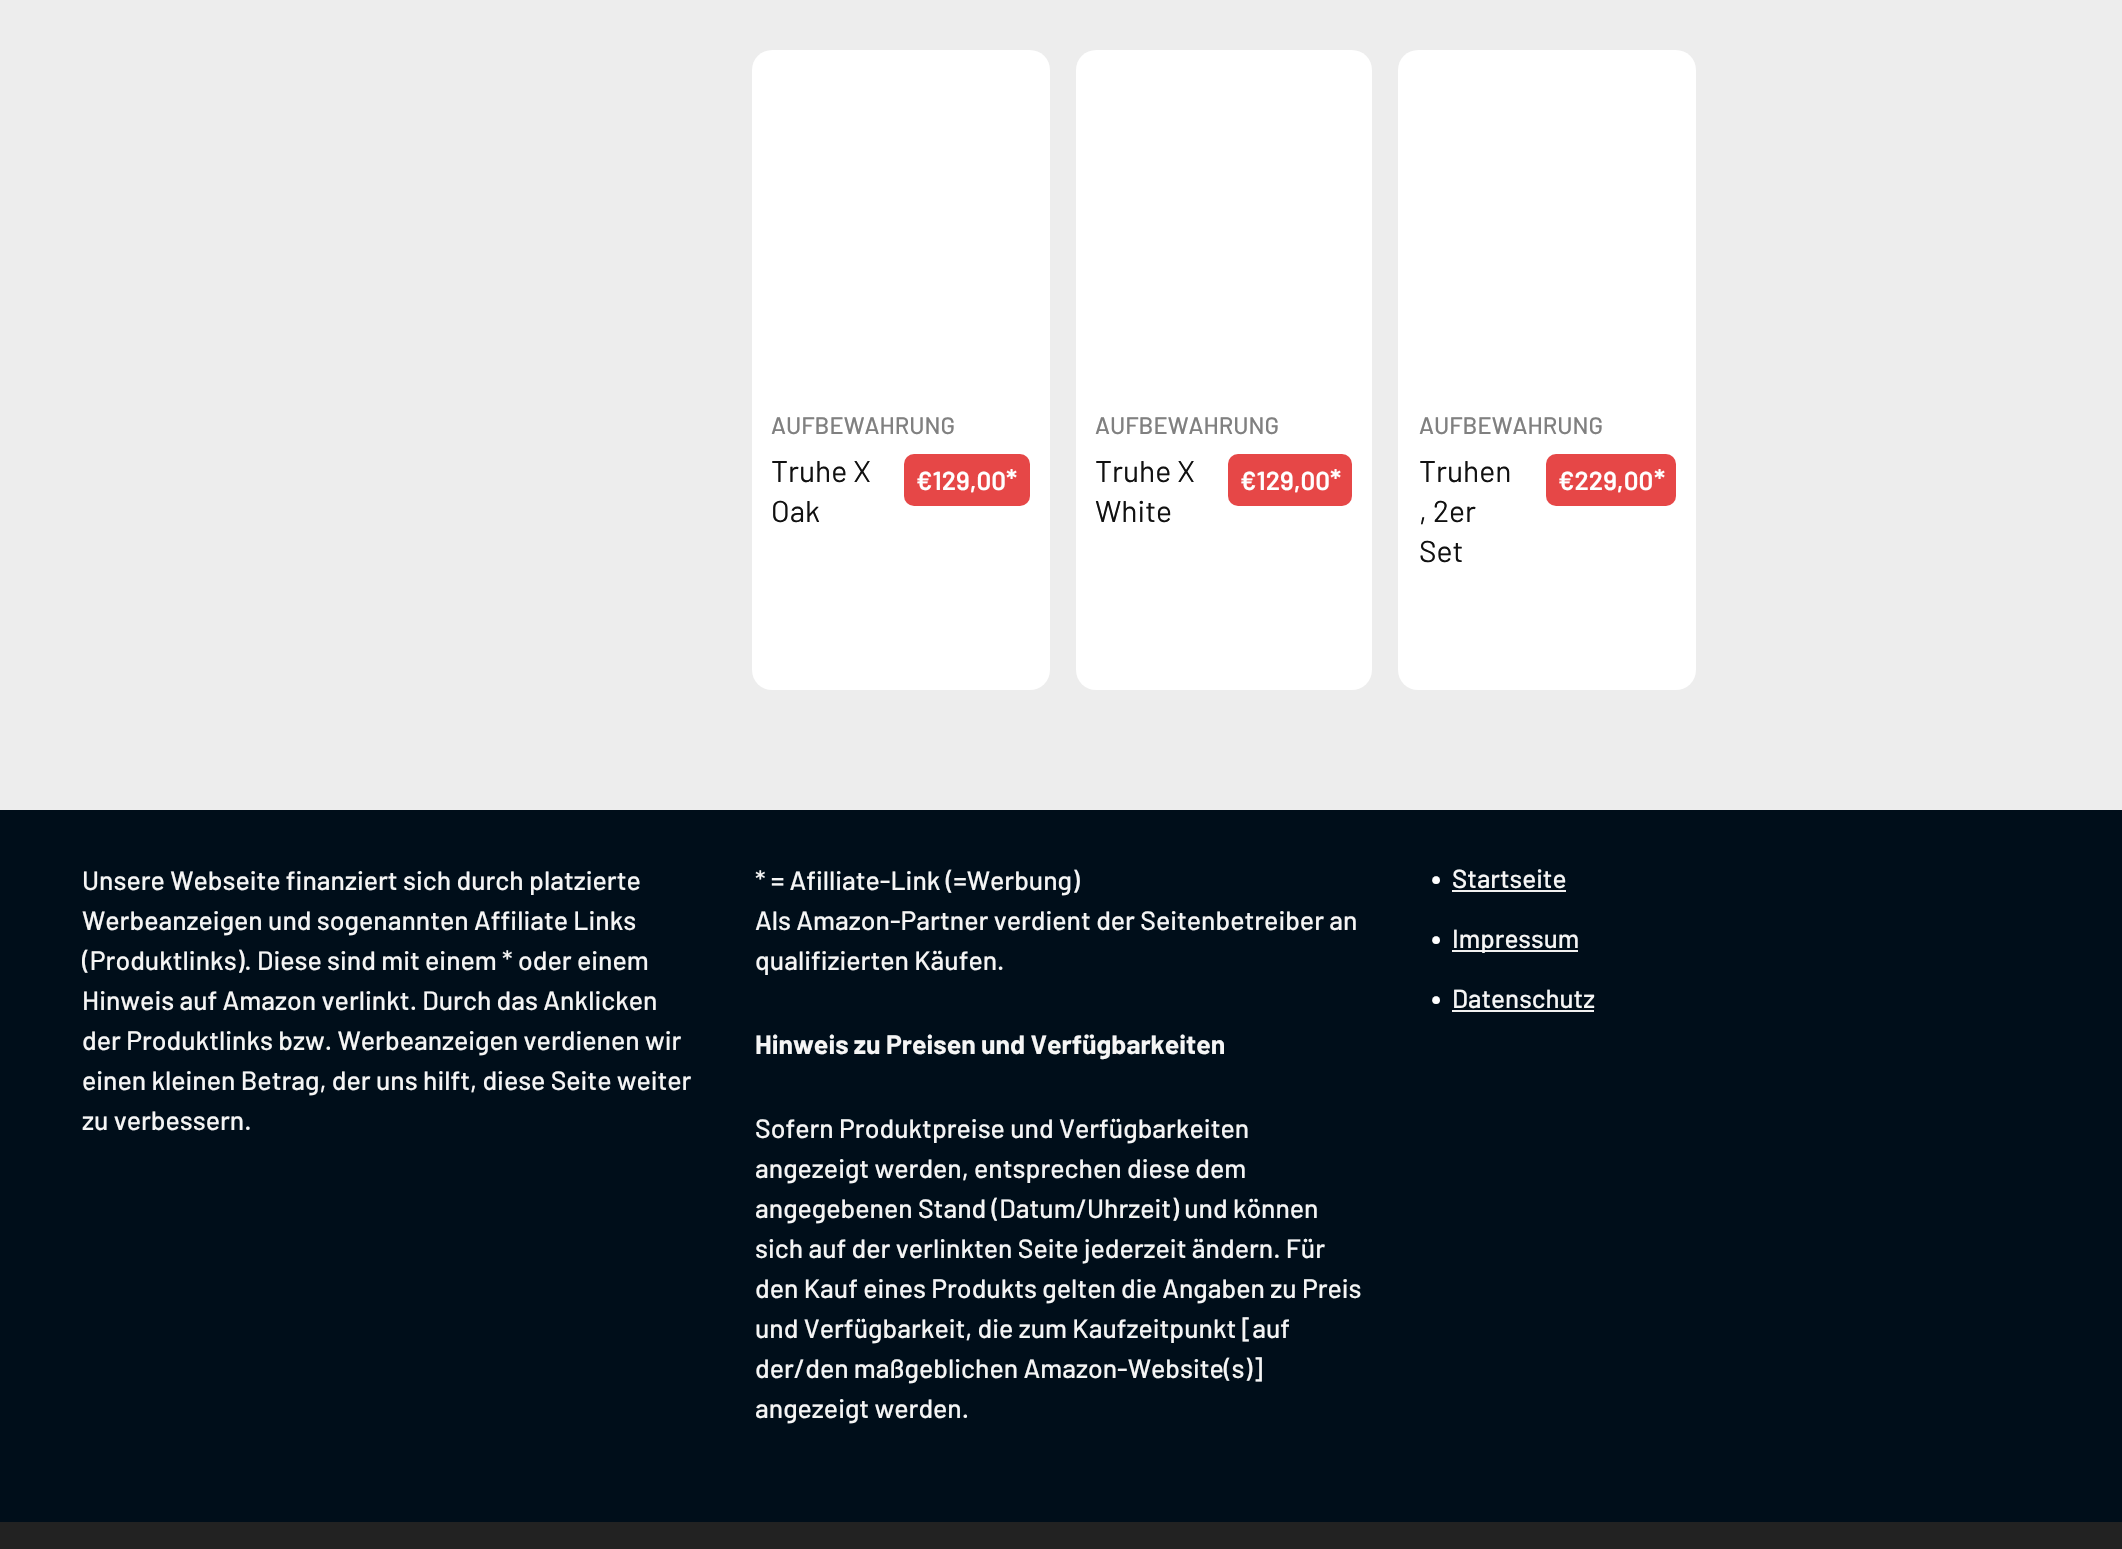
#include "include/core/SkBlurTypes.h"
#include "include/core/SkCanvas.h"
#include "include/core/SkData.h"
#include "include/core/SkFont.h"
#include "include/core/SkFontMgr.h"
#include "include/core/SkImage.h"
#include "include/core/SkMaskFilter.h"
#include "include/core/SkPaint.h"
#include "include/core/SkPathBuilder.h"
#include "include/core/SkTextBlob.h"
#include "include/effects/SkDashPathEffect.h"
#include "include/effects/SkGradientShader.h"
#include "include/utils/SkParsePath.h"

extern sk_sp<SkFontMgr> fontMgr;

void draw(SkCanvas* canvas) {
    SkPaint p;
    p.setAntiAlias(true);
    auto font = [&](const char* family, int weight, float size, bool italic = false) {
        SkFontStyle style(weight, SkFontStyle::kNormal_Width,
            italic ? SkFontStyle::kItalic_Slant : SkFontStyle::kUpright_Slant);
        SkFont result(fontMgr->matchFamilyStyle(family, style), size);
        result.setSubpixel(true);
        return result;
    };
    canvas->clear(0xFFEDEDED);
    p.setColor(0xFFFFFFFF);
    canvas->drawRoundRect(SkRect::MakeLTRB(752, 50, 1050, 690), 20, 20, p);
    auto font1 = font("Barlow", 500, 23.75f);
    p.setColor(0xFF808080);
    canvas->drawString("AUFBEWAHRUNG", 771, 434, font1, p);
    auto font2 = font("Barlow", 400, 30);
    p.setColor(0xFF111111);
    canvas->drawString("Truhe X", 771, 482, font2, p);
    canvas->drawString("Oak", 771, 522, font2, p);
    p.setColor(0xFFE64747);
    canvas->drawRoundRect(SkRect::MakeLTRB(904, 454, 1030, 506), 10, 10, p);
    auto font3 = font("Barlow", 600, 26);
    p.setColor(0xFFFFFFFF);
    canvas->drawString("€129,00", 916, 490, font3, p);
    auto font4 = font("Barlow", 600, 28);
    canvas->drawString("*", 1006, 490, font4, p);
    canvas->drawRoundRect(SkRect::MakeLTRB(1076, 50, 1372, 690), 20, 20, p);
    p.setColor(0xFF808080);
    canvas->drawString("AUFBEWAHRUNG", 1095, 434, font1, p);
    p.setColor(0xFF111111);
    canvas->drawString("Truhe X", 1095, 482, font2, p);
    canvas->drawString("White", 1095, 522, font2, p);
    p.setColor(0xFFE64747);
    canvas->drawRoundRect(SkRect::MakeLTRB(1228, 454, 1352, 506), 10, 10, p);
    p.setColor(0xFFFFFFFF);
    canvas->drawString("€129,00", 1240, 490, font3, p);
    canvas->drawString("*", 1330, 490, font4, p);
    canvas->drawRoundRect(SkRect::MakeLTRB(1398, 50, 1696, 690), 20, 20, p);
    p.setColor(0xFF808080);
    canvas->drawString("AUFBEWAHRUNG", 1419, 434, font1, p);
    p.setColor(0xFF111111);
    {
        const struct { const char* s; float x, y; } items[] = {
            {"Truhen", 1419, 482},
            {", 2er", 1419, 522},
            {"Set", 1419, 562},
        };
        for (auto [s, x, y] : items) {
            canvas->drawString(s, x, y, font2, p);
        }
    }
    p.setColor(0xFFE64747);
    canvas->drawRoundRect(SkRect::MakeLTRB(1546, 454, 1676, 506), 10, 10, p);
    p.setColor(0xFFFFFFFF);
    canvas->drawString("€229,00", 1558, 490, font3, p);
    canvas->drawString("*", 1654, 490, font4, p);
    p.setColor(0xFF000E1A);
    canvas->drawRect(SkRect::MakeLTRB(0, 810, 2122, 1522), p);
    auto font5 = font("Barlow", 500, 26.6f);
    p.setColor(0xFFF5F5F5);
    canvas->drawString("Unsere Webseite finanziert sich durch platzierte", 82, 890, font5, p);
    canvas->drawString("Werbeanzeigen und sogenannten Affiliate Links", 82, 930, font5, p);
    canvas->save();
    canvas->clipRect(SkRect::MakeLTRB(82, 860, 694, 1184));
    canvas->drawString("(Produktlinks). Diese sind mit einem * oder einem", 82, 970, font5, p);
    canvas->restore();
    {
        const struct { const char* s; float x, y; } items[] = {
            {"Hinweis auf Amazon verlinkt. Durch das Anklicken", 82, 1010},
            {"der Produktlinks bzw. Werbeanzeigen verdienen wir", 82, 1050},
            {"einen kleinen Betrag, der uns hilft, diese Seite weiter", 82, 1090},
            {"zu verbessern.", 82, 1130},
            {"* = Afilliate-Link (=Werbung)", 755, 890},
            {"Als Amazon-Partner verdient der Seitenbetreiber an", 755, 930},
            {"qualifizierten Käufen.", 755, 970},
        };
        for (auto [s, x, y] : items) {
            canvas->drawString(s, x, y, font5, p);
        }
    }
    auto font6 = font("Barlow", 700, 26.6f);
    canvas->drawString("Hinweis zu Preisen und Verfügbarkeiten", 755, 1054, font6, p);
    {
        const struct { const char* s; float x, y; } items[] = {
            {"Sofern Produktpreise und Verfügbarkeiten", 755, 1138},
            {"angezeigt werden, entsprechen diese dem", 755, 1178},
            {"angegebenen Stand (Datum/Uhrzeit) und können", 755, 1218},
            {"sich auf der verlinkten Seite jederzeit ändern. Für", 755, 1258},
            {"den Kauf eines Produkts gelten die Angaben zu Preis", 755, 1298},
            {"und Verfügbarkeit, die zum Kaufzeitpunkt [auf", 755, 1338},
            {"der/den maßgeblichen Amazon-Website(s)]", 755, 1378},
            {"angezeigt werden.", 755, 1418},
        };
        for (auto [s, x, y] : items) {
            canvas->drawString(s, x, y, font5, p);
        }
    }
    auto font7 = font("Barlow", 500, 60);
    p.setColor(0xFFFFFFFF);
    canvas->drawString(".", 1428, 884, font7, p);
    auto font8 = font("Barlow", 500, 26);
    p.setColor(0xFFF5F5F5);
    canvas->drawString("Startseite", 1452, 888, font8, p);
    p.setColor(0xFFF1F1F1);
    canvas->drawRect(SkRect::MakeLTRB(1452, 890, 1566, 892), p);
    p.setColor(0xFFFFFFFF);
    canvas->drawString(".", 1428, 944, font7, p);
    p.setColor(0xFFF1F1F1);
    canvas->drawRect(SkRect::MakeLTRB(1452, 950, 1578, 952), p);
    p.setColor(0xFFF5F5F5);
    canvas->drawString("Impressum", 1452, 948, font8, p);
    p.setColor(0xFFFFFFFF);
    canvas->drawString(".", 1428, 1004, font7, p);
    p.setColor(0xFFF5F5F5);
    canvas->drawString("Datenschutz", 1452, 1008, font8, p);
    p.setColor(0xFFF1F1F1);
    canvas->drawRect(SkRect::MakeLTRB(1452, 1010, 1594, 1012), p);
    p.setColor(0xFF222222);
    canvas->drawRect(SkRect::MakeLTRB(0, 1522, 2122, 1549), p);
}
